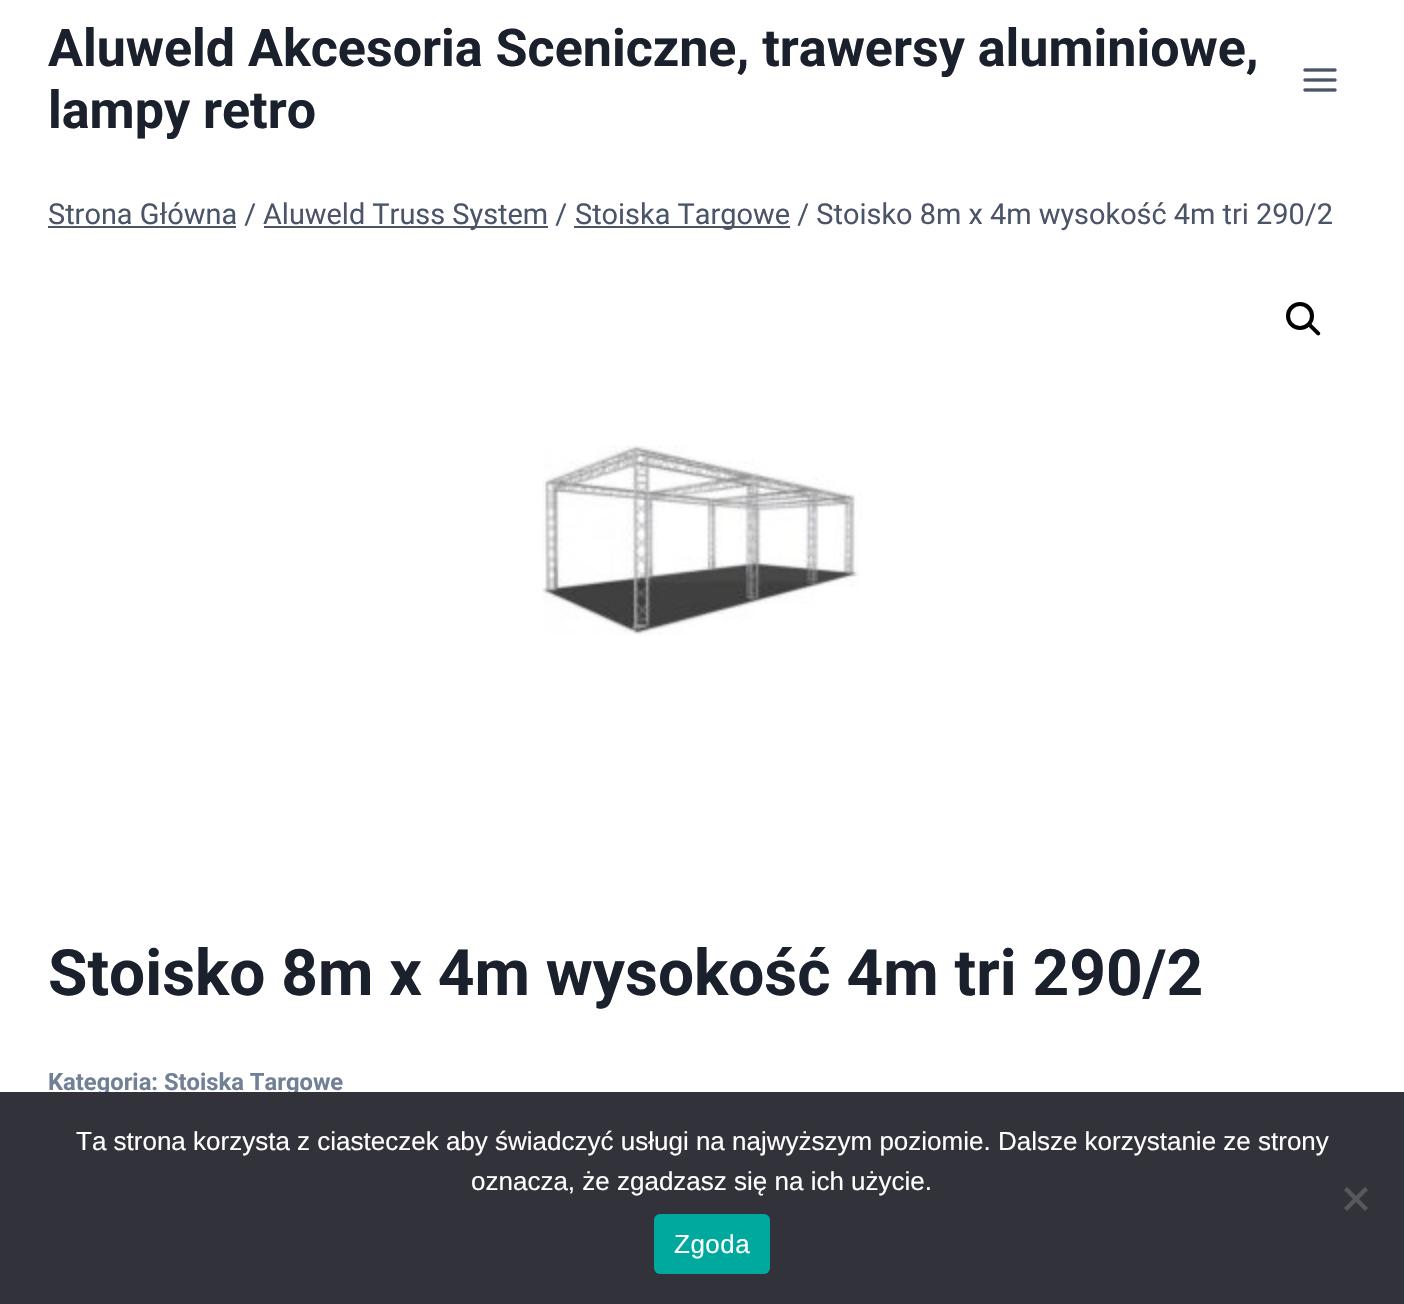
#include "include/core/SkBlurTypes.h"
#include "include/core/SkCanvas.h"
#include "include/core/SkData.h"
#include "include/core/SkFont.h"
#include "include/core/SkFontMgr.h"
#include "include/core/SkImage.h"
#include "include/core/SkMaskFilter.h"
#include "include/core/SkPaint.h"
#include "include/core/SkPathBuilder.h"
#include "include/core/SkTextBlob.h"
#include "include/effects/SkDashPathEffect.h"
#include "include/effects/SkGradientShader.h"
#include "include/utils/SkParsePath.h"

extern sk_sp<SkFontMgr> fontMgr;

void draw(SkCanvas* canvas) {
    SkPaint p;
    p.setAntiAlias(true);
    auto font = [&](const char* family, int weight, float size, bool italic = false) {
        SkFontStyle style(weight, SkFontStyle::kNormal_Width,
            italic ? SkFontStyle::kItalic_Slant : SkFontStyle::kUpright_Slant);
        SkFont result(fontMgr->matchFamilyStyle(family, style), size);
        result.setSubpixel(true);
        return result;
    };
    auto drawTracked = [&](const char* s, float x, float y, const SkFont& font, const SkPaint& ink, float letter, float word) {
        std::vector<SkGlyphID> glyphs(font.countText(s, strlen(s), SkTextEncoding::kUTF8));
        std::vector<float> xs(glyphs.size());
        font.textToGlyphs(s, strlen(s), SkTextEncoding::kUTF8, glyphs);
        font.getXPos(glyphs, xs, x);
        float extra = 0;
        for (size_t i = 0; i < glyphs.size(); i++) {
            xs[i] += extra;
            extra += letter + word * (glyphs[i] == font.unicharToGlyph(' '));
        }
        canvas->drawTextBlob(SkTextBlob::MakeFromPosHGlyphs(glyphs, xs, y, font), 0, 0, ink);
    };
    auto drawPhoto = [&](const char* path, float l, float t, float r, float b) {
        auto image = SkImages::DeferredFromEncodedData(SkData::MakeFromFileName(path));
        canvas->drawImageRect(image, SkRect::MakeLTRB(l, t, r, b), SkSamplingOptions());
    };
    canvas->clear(0xFFFFFFFF);
    auto font1 = font("Roboto", 700, 52);
    p.setColor(0xFF1A202C);
    canvas->drawString("Aluweld Akcesoria Sceniczne, trawersy aluminiowe,", 48, 66, font1, p);
    canvas->drawString("lampy retro", 48, 128, font1, p);
    drawPhoto("media/1.png", 1303, 68, 1337, 92);
    auto font2 = font("Roboto", 400, 28.9f);
    p.setColor(0xFF4A5568);
    canvas->drawString("Strona Główna /", 48, 224, font2, p);
    canvas->drawRect(SkRect::MakeLTRB(48, 226, 236, 228), p);
    canvas->drawRect(SkRect::MakeLTRB(264, 226, 548, 228), p);
    canvas->drawString("Aluweld Truss System /", 263, 224, font2, p);
    canvas->drawRect(SkRect::MakeLTRB(574, 226, 790, 228), p);
    canvas->drawString("Stoiska Targowe / Stoisko 8m x 4m wysokość 4m tri 290/2", 575, 224, font2, p);
    p.setStyle(SkPaint::kStroke_Style);
    p.setStrokeWidth(4);
    p.setColor(0xFF000000);
    canvas->drawCircle(1300, 316, 12, p);
    p.setStyle(SkPaint::kFill_Style);
    canvas->drawPath(SkPathBuilder().moveTo(1308.5f, 323.5f).cubicTo(1309, 322.5f, 1310.5f, 322.5f, 1311, 323.5f).lineTo(1319.5f, 332).cubicTo(1320.5f, 332.5f, 1320.5f, 334, 1319.5f, 335).cubicTo(1319, 335.5f, 1317.5f, 335.5f, 1317, 335).lineTo(1308.5f, 326.5f).cubicTo(1307.5f, 325.5f, 1307.5f, 324, 1308.5f, 323.5f).close().detach(), p);
    drawPhoto("media/2.png", 542, 445, 862, 635);
    auto font3 = font("Roboto", 700, 64);
    p.setColor(0xFF1A202C);
    canvas->drawString("Stoisko 8m x 4m wysokość 4m tri 290/2", 48, 995, font3, p);
    auto font4 = font("Roboto", 700, 23.75f);
    p.setColor(0xFF718096);
    canvas->drawString("Kategoria: Stoiska Targowe", 48, 1090, font4, p);
    p.setColor(0xFF32323A);
    canvas->drawRect(SkRect::MakeLTRB(0, 1092, 1404, 1304), p);
    auto font5 = font("Liberation Sans", 400, 26);
    p.setColor(0xFFFFFFFF);
    canvas->drawString("Ta strona korzysta z ciasteczek aby świadczyć usługi na najwyższym poziomie. Dalsze korzystanie ze strony", 76, 1150, font5, p);
    canvas->drawString("oznacza, że zgadzasz się na ich użycie.", 471, 1190, font5, p);
    p.setColor(0xFF59595D);
    canvas->drawPath(SkPathBuilder().moveTo(1365, 1187).lineTo(1368, 1190).lineTo(1347, 1211).lineTo(1344, 1208).close().detach(), p);
    canvas->drawPath(SkPathBuilder().moveTo(1344, 1190).lineTo(1347, 1187).lineTo(1368, 1208).lineTo(1365, 1211).close().detach(), p);
    p.setColor(0xFF00A99D);
    canvas->drawRoundRect(SkRect::MakeLTRB(654, 1214, 770, 1274), 6, 6, p);
    p.setColor(0xFFFFFFFF);
    drawTracked("Zgoda", 674, 1253, font5, p, 0.5f, 0);
}
